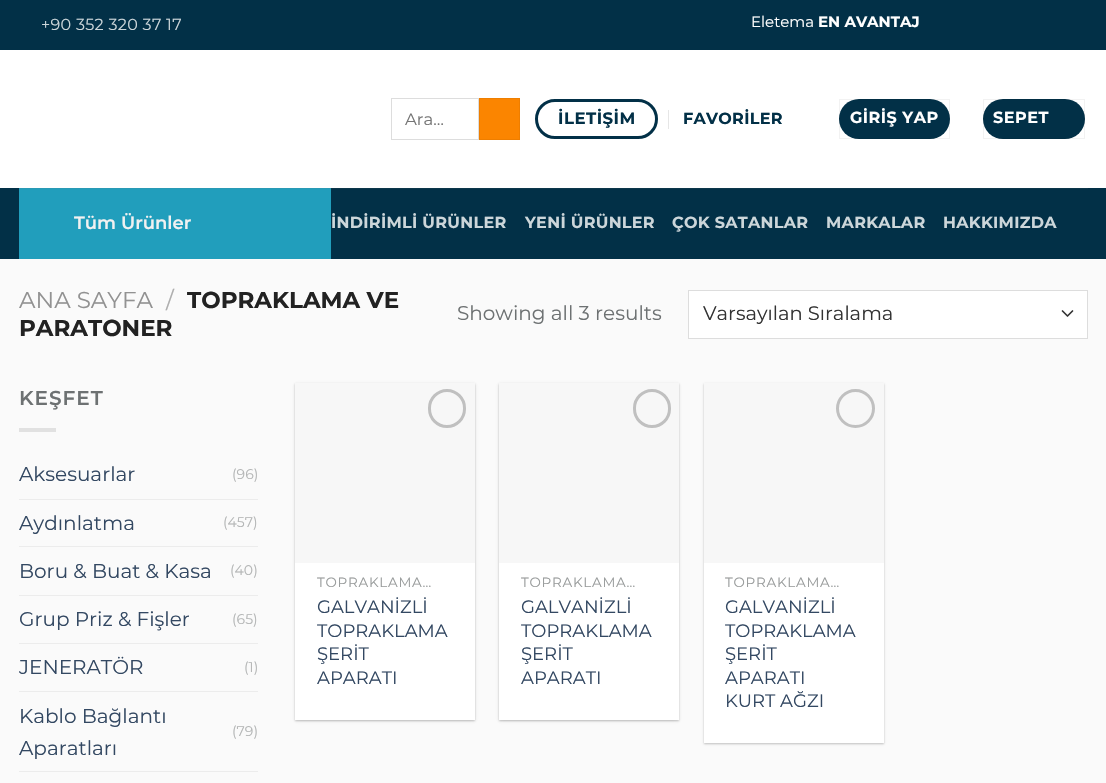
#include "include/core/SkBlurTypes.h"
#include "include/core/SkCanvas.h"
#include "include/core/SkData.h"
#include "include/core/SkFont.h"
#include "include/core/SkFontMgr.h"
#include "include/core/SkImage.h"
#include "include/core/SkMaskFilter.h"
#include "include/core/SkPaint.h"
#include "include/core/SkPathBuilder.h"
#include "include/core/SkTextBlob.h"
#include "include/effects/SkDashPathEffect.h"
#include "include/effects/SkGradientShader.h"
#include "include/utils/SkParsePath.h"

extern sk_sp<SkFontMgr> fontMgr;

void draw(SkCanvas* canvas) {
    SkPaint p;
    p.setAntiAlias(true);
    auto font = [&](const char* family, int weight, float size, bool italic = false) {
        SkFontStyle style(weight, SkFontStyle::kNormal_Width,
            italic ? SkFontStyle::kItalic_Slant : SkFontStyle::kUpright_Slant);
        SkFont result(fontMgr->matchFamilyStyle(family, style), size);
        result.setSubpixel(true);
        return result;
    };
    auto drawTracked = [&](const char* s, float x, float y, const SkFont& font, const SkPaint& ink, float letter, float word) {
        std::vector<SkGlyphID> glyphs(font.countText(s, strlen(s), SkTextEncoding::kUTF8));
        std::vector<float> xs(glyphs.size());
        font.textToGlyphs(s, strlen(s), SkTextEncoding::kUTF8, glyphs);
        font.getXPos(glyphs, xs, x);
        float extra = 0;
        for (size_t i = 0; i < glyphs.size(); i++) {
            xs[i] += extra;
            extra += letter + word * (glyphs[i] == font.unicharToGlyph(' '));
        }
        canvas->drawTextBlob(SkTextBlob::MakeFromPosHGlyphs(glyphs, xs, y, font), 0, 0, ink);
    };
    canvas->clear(0xFFFAFAFA);
    p.setColor(0xFF023047);
    canvas->drawRect(SkRect::MakeLTRB(0, 0, 1106, 50), p);
    auto font1 = font("Montserrat", 400, 16);
    p.setColor(0xFFCCD6DA);
    drawTracked("+90 352 320 37 17", 41, 30, font1, p, 0.3f, 0);
    auto font2 = font("Montserrat", 400, 15);
    p.setColor(0xFFFFFFFF);
    canvas->drawString("Eletema", 751, 27, font2, p);
    auto font3 = font("Montserrat", 700, 15);
    canvas->drawString("EN AVANTAJ", 818, 27, font3, p);
    canvas->drawRect(SkRect::MakeLTRB(0, 50, 1106, 188), p);
    p.setStyle(SkPaint::kStroke_Style);
    p.setStrokeWidth(1);
    p.setColor(0xFFDDDDDD);
    canvas->drawRect(SkRect::MakeLTRB(391.5f, 98.5f, 478.5f, 139.5f), p);
    auto font4 = font("Montserrat", 400, 16.5f);
    p.setStyle(SkPaint::kFill_Style);
    p.setColor(0xFF757575);
    canvas->drawString("Ara…", 405, 125, font4, p);
    p.setColor(0xFFFB8500);
    canvas->drawRect(SkRect::MakeLTRB(479.5f, 98.5f, 519.5f, 139.5f), p);
    p.setStyle(SkPaint::kStroke_Style);
    p.setColor(0xFFEE7E00);
    canvas->drawRect(SkRect::MakeLTRB(479.5f, 98.5f, 519.5f, 139.5f), p);
    p.setStrokeWidth(3);
    p.setColor(0xFF023047);
    canvas->drawRoundRect(SkRect::MakeLTRB(536.5f, 100.5f, 656.5f, 137.5f), 18.5f, 18.5f, p);
    auto font5 = font("Montserrat", 700, 16.5f);
    p.setStyle(SkPaint::kFill_Style);
    drawTracked("İLETİŞİM", 558, 124, font5, p, 0.5f, 0);
    p.setColor(0xFFE6E6E6);
    canvas->drawRect(SkRect::MakeLTRB(668, 110, 669, 129), p);
    auto font6 = font("Montserrat", 700, 16);
    p.setColor(0xFF023047);
    drawTracked("FAVORİLER", 683, 124, font6, p, 0.3f, 0);
    canvas->drawRoundRect(SkRect::MakeLTRB(839, 99, 950, 139), 20, 20, p);
    p.setStyle(SkPaint::kStroke_Style);
    p.setStrokeWidth(1);
    p.setColor(0x0D000000);
    canvas->drawRect(SkRect::MakeLTRB(839.5f, 99.5f, 949.5f, 138.5f), p);
    p.setStyle(SkPaint::kFill_Style);
    p.setColor(0xFFFFFFFF);
    drawTracked("GİRİŞ YAP", 850, 123, font6, p, 0.5f, 0);
    p.setColor(0xFF023047);
    canvas->drawRoundRect(SkRect::MakeLTRB(983, 99, 1085, 139), 20, 20, p);
    p.setStyle(SkPaint::kStroke_Style);
    p.setColor(0x0D000000);
    canvas->drawRect(SkRect::MakeLTRB(983.5f, 99.5f, 1084.5f, 138.5f), p);
    p.setStyle(SkPaint::kFill_Style);
    p.setColor(0xFFFFFFFF);
    drawTracked("SEPET", 993, 123, font6, p, 0.5f, 0);
    {
        const struct { float l, t, r, b; SkColor color; } items[] = {
            {0, 188, 1106, 259, 0xFF023047},
            {331, 188, 1088, 189, 0xFF0D374B},
            {19, 189, 331, 259, 0xFF219EBC},
            {19, 188, 331, 189, 0xFF299AB5},
        };
        for (auto [l, t, r, b, color] : items) {
            p.setColor(color);
            canvas->drawRect(SkRect::MakeLTRB(l, t, r, b), p);
        }
    }
    auto font7 = font("Montserrat", 600, 18);
    p.setColor(0xFFF1F1F1);
    canvas->drawString("Tüm Ürünler", 74, 229, font7, p);
    p.setColor(0xFFCCD6DA);
    {
        const struct { const char* s; float x, y; } items[] = {
            {"İNDİRİMLİ ÜRÜNLER", 331, 228},
            {"YENİ ÜRÜNLER", 525, 228},
            {"ÇOK SATANLAR", 672, 228},
            {"MARKALAR", 826, 228},
            {"HAKKIMIZDA", 943, 228},
        };
        for (auto [s, x, y] : items) {
            drawTracked(s, x, y, font6, p, 0.3f, 0);
        }
    }
    auto font8 = font("Montserrat", 400, 23);
    p.setColor(0xFF929292);
    canvas->drawString("ANA SAYFA", 19, 308, font8, p);
    p.setColor(0xFFAEAEAE);
    canvas->drawString("/", 166, 308, font8, p);
    auto font9 = font("Montserrat", 700, 23);
    p.setColor(0xFF222222);
    canvas->drawString("TOPRAKLAMA VE", 187, 308, font9, p);
    canvas->drawString("PARATONER", 19, 336, font9, p);
    auto font10 = font("Montserrat", 400, 20);
    p.setColor(0xFF6D7172);
    canvas->drawString("Showing all 3 results", 457, 320, font10, p);
    p.setColor(0xFFFFFFFF);
    canvas->drawRect(SkRect::MakeLTRB(689, 291, 1087, 338), p);
    p.setStyle(SkPaint::kStroke_Style);
    p.setStrokeWidth(1.7f);
    p.setStrokeCap(SkPaint::kRound_Cap);
    p.setStrokeJoin(SkPaint::kRound_Join);
    p.setColor(0xFF333333);
    canvas->drawPath(SkPathBuilder().moveTo(1062.5f, 311).lineTo(1067.5f, 316).lineTo(1072.5f, 311).detach(), p);
    p.setStrokeWidth(1);
    p.setStrokeCap(SkPaint::kButt_Cap);
    p.setStrokeJoin(SkPaint::kMiter_Join);
    p.setColor(0xFFDDDDDD);
    canvas->drawRect(SkRect::MakeLTRB(688.5f, 290.5f, 1087.5f, 338.5f), p);
    auto font11 = font("Montserrat", 400, 19.5f);
    p.setStyle(SkPaint::kFill_Style);
    p.setColor(0xFF333333);
    canvas->drawString("Varsayılan Sıralama", 703, 320, font11, p);
    auto font12 = font("Montserrat", 600, 20);
    p.setColor(0xFF6D7172);
    drawTracked("KEŞFET", 19, 405, font12, p, 1, 0);
    p.setColor(0xFFE1E1E1);
    canvas->drawRect(SkRect::MakeLTRB(19, 428, 56, 432), p);
    p.setColor(0xFF334862);
    canvas->drawString("Aksesuarlar", 19, 481, font10, p);
    auto font13 = font("Montserrat", 400, 14);
    p.setColor(0xFFB4B6B6);
    canvas->drawString("(96)", 232, 479, font13, p);
    p.setColor(0xFFECECEC);
    canvas->drawRect(SkRect::MakeLTRB(19, 499, 258, 500), p);
    p.setColor(0xFF334862);
    canvas->drawString("Aydınlatma", 19, 530, font10, p);
    p.setColor(0xFFB4B6B6);
    canvas->drawString("(457)", 223, 527, font13, p);
    p.setColor(0xFFECECEC);
    canvas->drawRect(SkRect::MakeLTRB(19, 546, 258, 547), p);
    p.setColor(0xFF334862);
    canvas->drawString("Boru & Buat & Kasa", 19, 578, font10, p);
    p.setColor(0xFFB4B6B6);
    canvas->drawString("(40)", 230, 575, font13, p);
    p.setColor(0xFFECECEC);
    canvas->drawRect(SkRect::MakeLTRB(19, 595, 258, 596), p);
    p.setColor(0xFF334862);
    canvas->drawString("Grup Priz & Fişler", 19, 626, font10, p);
    p.setColor(0xFFB4B6B6);
    canvas->drawString("(65)", 232, 624, font13, p);
    p.setColor(0xFFECECEC);
    canvas->drawRect(SkRect::MakeLTRB(19, 643, 258, 644), p);
    p.setColor(0xFF334862);
    canvas->drawString("JENERATÖR", 19, 674, font10, p);
    p.setColor(0xFFB4B6B6);
    canvas->drawString("(1)", 244, 672, font13, p);
    p.setColor(0xFFECECEC);
    canvas->drawRect(SkRect::MakeLTRB(19, 691, 258, 692), p);
    p.setColor(0xFF334862);
    canvas->drawString("Kablo Bağlantı", 19, 723, font10, p);
    canvas->drawString("Aparatları", 19, 755, font10, p);
    p.setColor(0xFFB4B6B6);
    canvas->drawString("(79)", 232, 736, font13, p);
    p.setColor(0xFFECECEC);
    canvas->drawRect(SkRect::MakeLTRB(19, 771, 258, 772), p);
    p.setColor(0x3D000000);
    p.setMaskFilter(SkMaskFilter::MakeBlur(kNormal_SkBlurStyle, 1));
    canvas->drawRect(SkRect::MakeLTRB(295, 384, 475, 721), p);
    p.setMaskFilter(nullptr);
    p.setColor(0x1F000000);
    p.setMaskFilter(SkMaskFilter::MakeBlur(kNormal_SkBlurStyle, 2));
    canvas->drawRect(SkRect::MakeLTRB(298, 386, 473, 719), p);
    p.setMaskFilter(nullptr);
    p.setColor(0xFFFFFFFF);
    canvas->drawRect(SkRect::MakeLTRB(295, 563, 475, 720), p);
    p.setColor(0xFFF7F7F7);
    canvas->drawRect(SkRect::MakeLTRB(295, 383, 475, 563), p);
    p.setStyle(SkPaint::kStroke_Style);
    p.setStrokeWidth(3);
    p.setColor(0xFFC0C0C0);
    canvas->drawRoundRect(SkRect::MakeLTRB(429.5f, 390.5f, 464.5f, 426.5f), 17.5f, 17.5f, p);
    auto font14 = font("Montserrat", 400, 13.5f);
    p.setStyle(SkPaint::kFill_Style);
    p.setColor(0xFF999C9C);
    drawTracked("TOPRAKLAMA…", 317, 587, font14, p, 0.75f, 0);
    auto font15 = font("Montserrat", 400, 18);
    p.setColor(0xFF334862);
    {
        const struct { const char* s; float x, y; } items[] = {
            {"GALVANİZLİ", 317, 613},
            {"TOPRAKLAMA", 317, 637},
            {"ŞERİT", 317, 660},
            {"APARATI", 317, 684},
        };
        for (auto [s, x, y] : items) {
            canvas->drawString(s, x, y, font15, p);
        }
    }
    p.setColor(0x3D000000);
    p.setMaskFilter(SkMaskFilter::MakeBlur(kNormal_SkBlurStyle, 1));
    canvas->drawRect(SkRect::MakeLTRB(499, 384, 679, 721), p);
    p.setMaskFilter(nullptr);
    p.setColor(0x1F000000);
    p.setMaskFilter(SkMaskFilter::MakeBlur(kNormal_SkBlurStyle, 2));
    canvas->drawRect(SkRect::MakeLTRB(501, 386, 676, 719), p);
    p.setMaskFilter(nullptr);
    p.setColor(0xFFFFFFFF);
    canvas->drawRect(SkRect::MakeLTRB(499, 563, 679, 720), p);
    p.setColor(0xFFF7F7F7);
    canvas->drawRect(SkRect::MakeLTRB(499, 383, 679, 563), p);
    p.setStyle(SkPaint::kStroke_Style);
    p.setColor(0xFFC0C0C0);
    canvas->drawRoundRect(SkRect::MakeLTRB(634.5f, 390.5f, 669.5f, 426.5f), 17.5f, 17.5f, p);
    p.setStyle(SkPaint::kFill_Style);
    p.setColor(0xFF999C9C);
    drawTracked("TOPRAKLAMA…", 521, 587, font14, p, 0.75f, 0);
    p.setColor(0xFF334862);
    {
        const struct { const char* s; float x, y; } items[] = {
            {"GALVANİZLİ", 521, 613},
            {"TOPRAKLAMA", 521, 637},
            {"ŞERİT", 521, 660},
            {"APARATI", 521, 684},
        };
        for (auto [s, x, y] : items) {
            canvas->drawString(s, x, y, font15, p);
        }
    }
    p.setColor(0x3D000000);
    p.setMaskFilter(SkMaskFilter::MakeBlur(kNormal_SkBlurStyle, 1));
    canvas->drawRect(SkRect::MakeLTRB(704, 384, 884, 744), p);
    p.setMaskFilter(nullptr);
    p.setColor(0xFFFFFFFF);
    canvas->drawRect(SkRect::MakeLTRB(704, 563, 884, 743), p);
    p.setColor(0xFFF7F7F7);
    canvas->drawRect(SkRect::MakeLTRB(704, 383, 884, 563), p);
    p.setStyle(SkPaint::kStroke_Style);
    p.setColor(0xFFC0C0C0);
    canvas->drawCircle(855.5f, 408.5f, 18, p);
    p.setStyle(SkPaint::kFill_Style);
    p.setColor(0xFF999C9C);
    drawTracked("TOPRAKLAMA…", 725, 587, font14, p, 0.75f, 0);
    p.setColor(0xFF334862);
    {
        const struct { const char* s; float x, y; } items[] = {
            {"GALVANİZLİ", 725, 613},
            {"TOPRAKLAMA", 725, 637},
            {"ŞERİT", 725, 660},
            {"APARATI", 725, 684},
            {"KURT AĞZI", 725, 707},
        };
        for (auto [s, x, y] : items) {
            canvas->drawString(s, x, y, font15, p);
        }
    }
}
